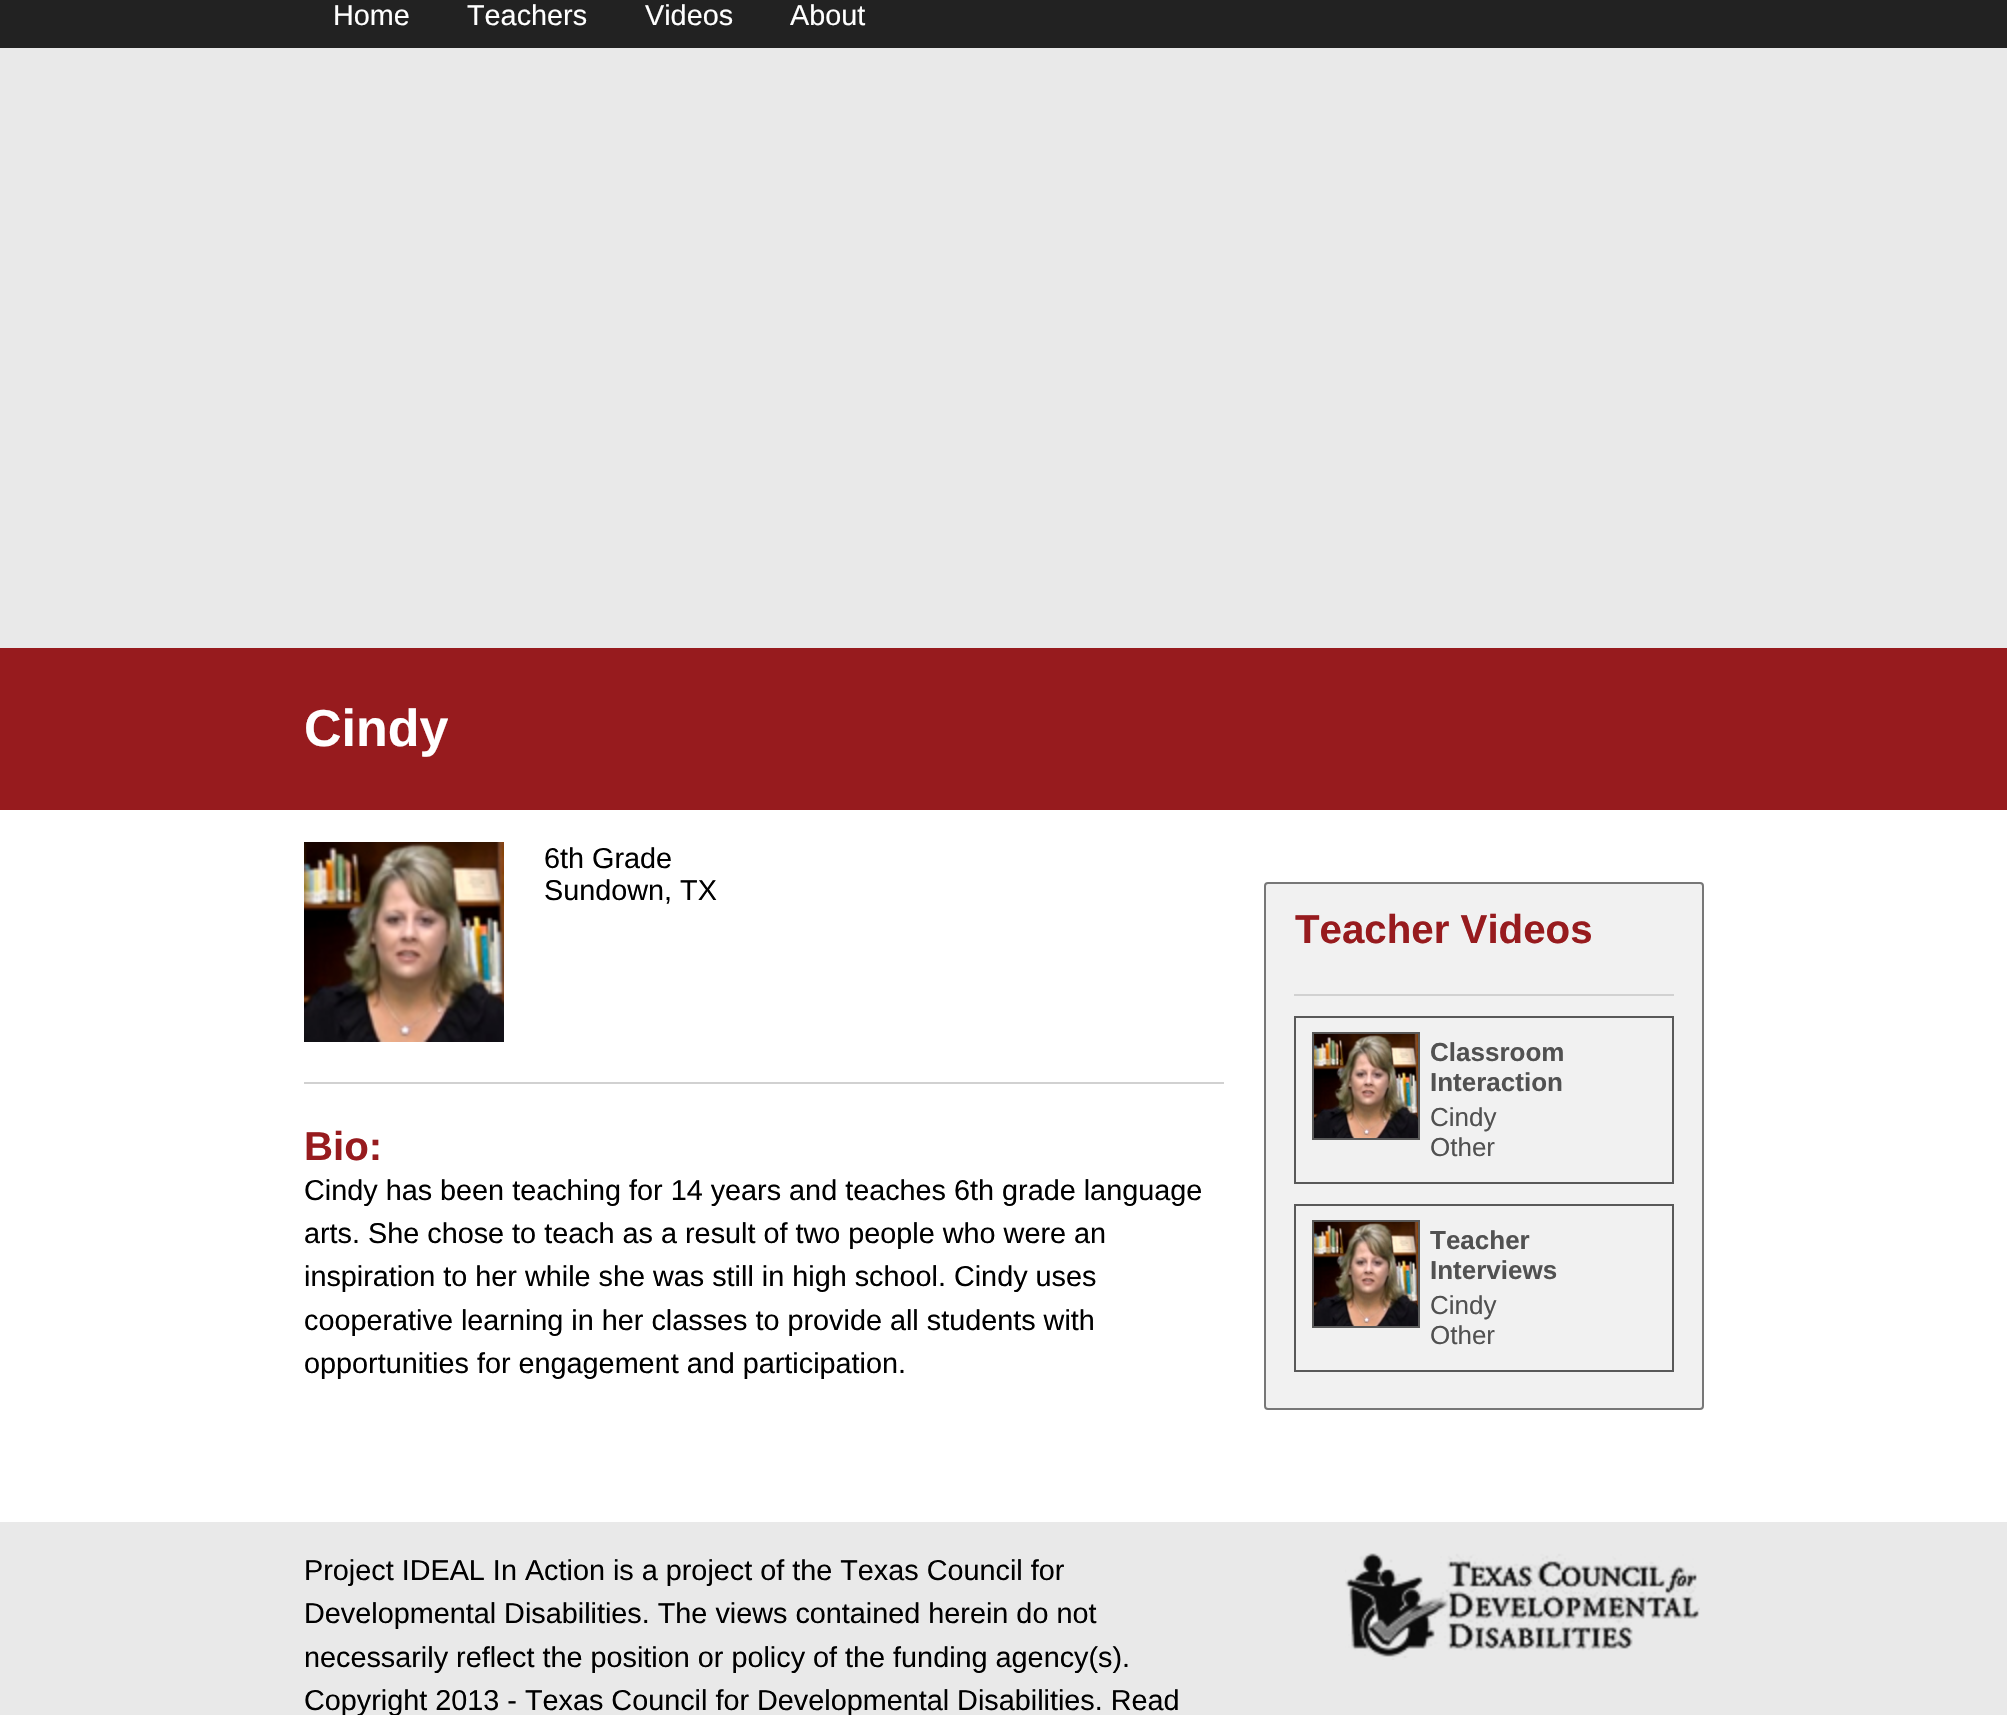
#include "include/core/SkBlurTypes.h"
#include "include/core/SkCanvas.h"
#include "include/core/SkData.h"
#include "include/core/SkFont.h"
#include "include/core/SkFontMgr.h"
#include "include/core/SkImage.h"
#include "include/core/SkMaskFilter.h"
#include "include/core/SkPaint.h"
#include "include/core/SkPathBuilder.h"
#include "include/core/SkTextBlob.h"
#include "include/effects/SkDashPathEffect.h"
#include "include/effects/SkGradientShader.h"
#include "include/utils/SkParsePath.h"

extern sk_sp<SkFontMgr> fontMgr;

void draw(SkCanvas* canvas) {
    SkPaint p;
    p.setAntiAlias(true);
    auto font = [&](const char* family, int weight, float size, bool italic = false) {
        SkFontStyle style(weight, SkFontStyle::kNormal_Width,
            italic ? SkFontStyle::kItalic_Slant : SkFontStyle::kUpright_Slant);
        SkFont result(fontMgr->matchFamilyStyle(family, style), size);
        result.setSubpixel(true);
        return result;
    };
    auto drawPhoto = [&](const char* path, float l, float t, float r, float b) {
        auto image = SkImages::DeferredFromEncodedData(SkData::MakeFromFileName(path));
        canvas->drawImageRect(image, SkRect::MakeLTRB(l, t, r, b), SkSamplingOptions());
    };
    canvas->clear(0xFFE9E9E9);
    p.setColor(0xFF222222);
    canvas->drawRect(SkRect::MakeLTRB(0, 0, 2007, 48), p);
    auto font1 = font("Liberation Sans", 400, 28.8f);
    p.setColor(0xFFFFFFFF);
    {
        const struct { const char* s; float x, y; } items[] = {
            {"Home", 333, 25},
            {"Teachers", 467, 25},
            {"Videos", 645, 25},
            {"About", 790, 25},
        };
        for (auto [s, x, y] : items) {
            canvas->drawString(s, x, y, font1, p);
        }
    }
    p.setColor(0xFF971B1E);
    canvas->drawRect(SkRect::MakeLTRB(0, 648, 2007, 810), p);
    auto font2 = font("Liberation Sans", 700, 52);
    p.setColor(0xFFFFFFFF);
    canvas->drawString("Cindy", 304, 746, font2, p);
    canvas->drawRect(SkRect::MakeLTRB(0, 810, 2007, 1522), p);
    p.setColor(0xFFD1D1D1);
    canvas->drawRect(SkRect::MakeLTRB(304, 1082, 1224, 1084), p);
    drawPhoto("media/1.png", 304, 842, 504, 1042);
    p.setColor(0xFF000000);
    canvas->drawString("6th Grade", 544, 868, font1, p);
    canvas->drawString("Sundown, TX", 544, 900, font1, p);
    auto font3 = font("Liberation Sans", 700, 40.25f);
    p.setColor(0xFF971B1E);
    canvas->drawString("Bio:", 304, 1160, font3, p);
    p.setColor(0xFF000000);
    {
        const struct { const char* s; float x, y; } items[] = {
            {"Cindy has been teaching for 14 years and teaches 6th grade language", 304, 1200},
            {"arts. She chose to teach as a result of two people who were an", 304, 1243},
            {"inspiration to her while she was still in high school. Cindy uses", 304, 1286},
            {"cooperative learning in her classes to provide all students with", 304, 1330},
            {"opportunities for engagement and participation.", 304, 1373},
        };
        for (auto [s, x, y] : items) {
            canvas->drawString(s, x, y, font1, p);
        }
    }
    p.setColor(0xFFF1F1F1);
    canvas->drawRoundRect(SkRect::MakeLTRB(1265, 883, 1703, 1409), 3, 3, p);
    p.setStyle(SkPaint::kStroke_Style);
    p.setStrokeWidth(2);
    p.setColor(0xFF777777);
    canvas->drawRoundRect(SkRect::MakeLTRB(1265, 883, 1703, 1409), 3, 3, p);
    p.setStyle(SkPaint::kFill_Style);
    p.setColor(0xFF971B1E);
    canvas->drawString("Teacher Videos", 1295, 943, font3, p);
    p.setColor(0xFFD1D1D1);
    canvas->drawRect(SkRect::MakeLTRB(1294, 994, 1674, 996), p);
    p.setStyle(SkPaint::kStroke_Style);
    p.setColor(0xFF595959);
    canvas->drawRect(SkRect::MakeLTRB(1295, 1017, 1673, 1183), p);
    canvas->drawRect(SkRect::MakeLTRB(1313, 1033, 1419, 1139), p);
    drawPhoto("media/2.png", 1314, 1034, 1418, 1138);
    auto font4 = font("Liberation Sans", 700, 26);
    p.setStyle(SkPaint::kFill_Style);
    p.setColor(0xFF515151);
    canvas->drawString("Classroom", 1430, 1061, font4, p);
    canvas->drawString("Interaction", 1430, 1091, font4, p);
    auto font5 = font("Liberation Sans", 400, 26);
    canvas->drawString("Cindy", 1430, 1126, font5, p);
    canvas->drawString("Other", 1430, 1156, font5, p);
    p.setStyle(SkPaint::kStroke_Style);
    p.setColor(0xFF595959);
    canvas->drawRect(SkRect::MakeLTRB(1295, 1205, 1673, 1371), p);
    canvas->drawRect(SkRect::MakeLTRB(1313, 1221, 1419, 1327), p);
    drawPhoto("media/2.png", 1314, 1222, 1418, 1326);
    p.setStyle(SkPaint::kFill_Style);
    p.setColor(0xFF515151);
    canvas->drawString("Teacher", 1430, 1249, font4, p);
    canvas->drawString("Interviews", 1430, 1279, font4, p);
    canvas->drawString("Cindy", 1430, 1314, font5, p);
    canvas->drawString("Other", 1430, 1344, font5, p);
    p.setColor(0xFF000000);
    {
        const struct { const char* s; float x, y; } items[] = {
            {"Project IDEAL In Action is a project of the Texas Council for", 304, 1580},
            {"Developmental Disabilities. The views contained herein do not", 304, 1623},
            {"necessarily reflect the position or policy of the funding agency(s).", 304, 1667},
            {"Copyright 2013 - Texas Council for Developmental Disabilities. Read", 304, 1710},
        };
        for (auto [s, x, y] : items) {
            canvas->drawString(s, x, y, font1, p);
        }
    }
    drawPhoto("media/3.png", 1345, 1553, 1700, 1660);
}
